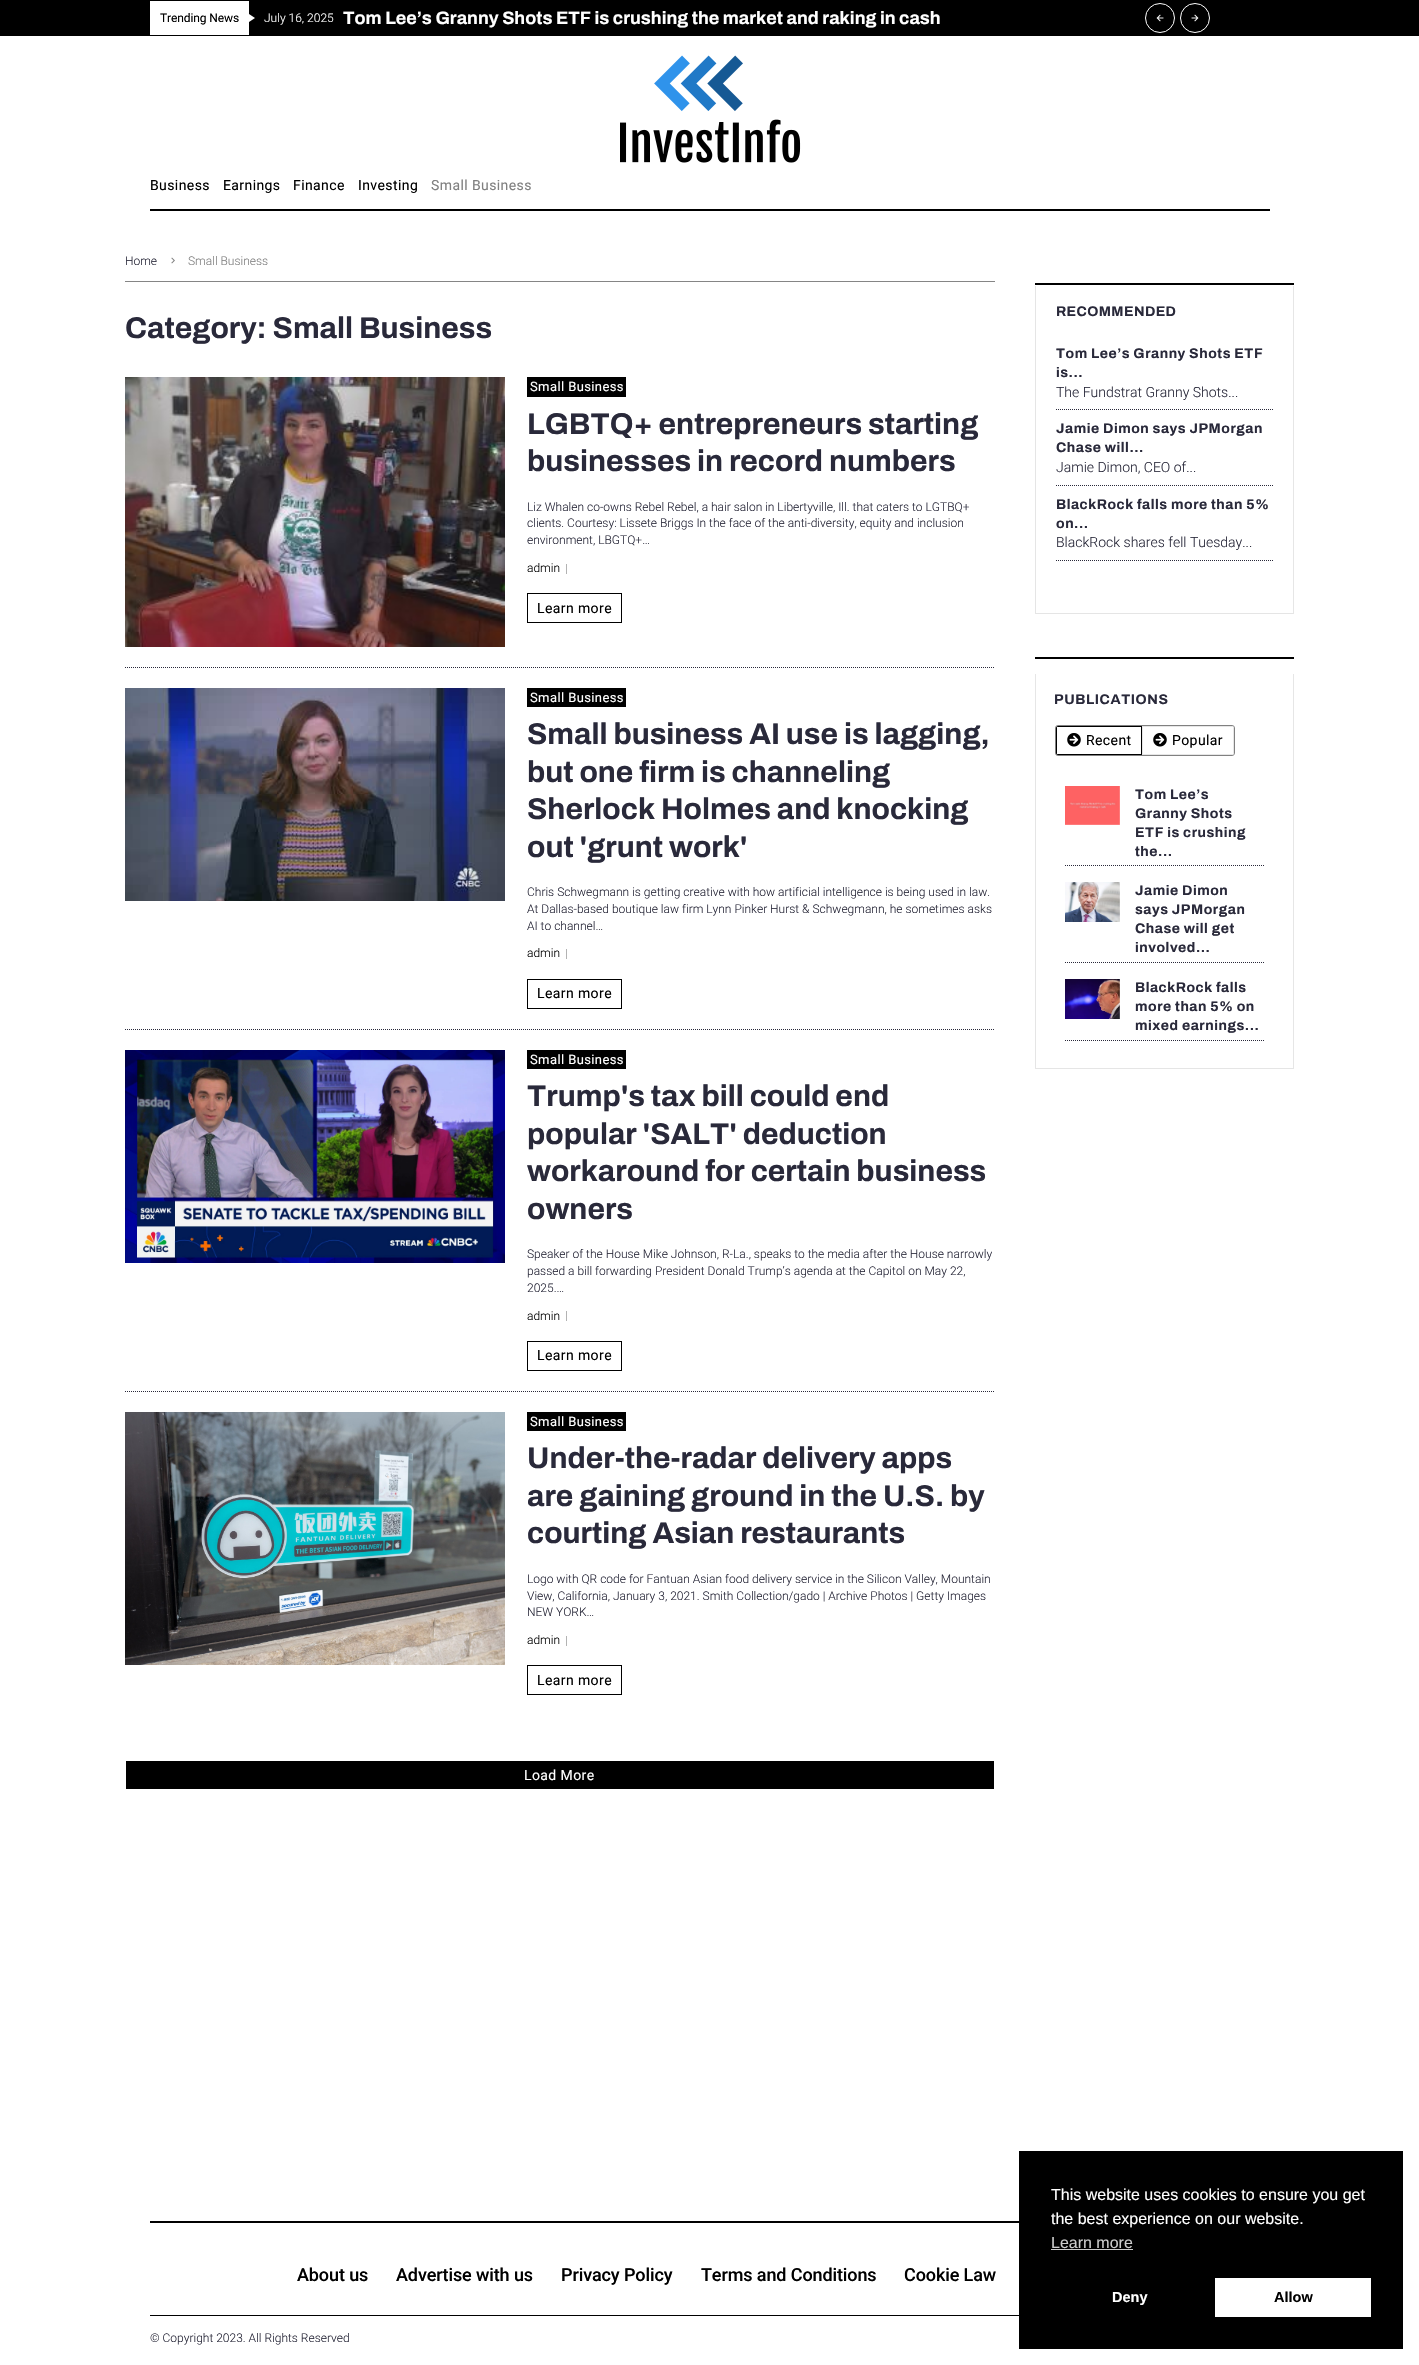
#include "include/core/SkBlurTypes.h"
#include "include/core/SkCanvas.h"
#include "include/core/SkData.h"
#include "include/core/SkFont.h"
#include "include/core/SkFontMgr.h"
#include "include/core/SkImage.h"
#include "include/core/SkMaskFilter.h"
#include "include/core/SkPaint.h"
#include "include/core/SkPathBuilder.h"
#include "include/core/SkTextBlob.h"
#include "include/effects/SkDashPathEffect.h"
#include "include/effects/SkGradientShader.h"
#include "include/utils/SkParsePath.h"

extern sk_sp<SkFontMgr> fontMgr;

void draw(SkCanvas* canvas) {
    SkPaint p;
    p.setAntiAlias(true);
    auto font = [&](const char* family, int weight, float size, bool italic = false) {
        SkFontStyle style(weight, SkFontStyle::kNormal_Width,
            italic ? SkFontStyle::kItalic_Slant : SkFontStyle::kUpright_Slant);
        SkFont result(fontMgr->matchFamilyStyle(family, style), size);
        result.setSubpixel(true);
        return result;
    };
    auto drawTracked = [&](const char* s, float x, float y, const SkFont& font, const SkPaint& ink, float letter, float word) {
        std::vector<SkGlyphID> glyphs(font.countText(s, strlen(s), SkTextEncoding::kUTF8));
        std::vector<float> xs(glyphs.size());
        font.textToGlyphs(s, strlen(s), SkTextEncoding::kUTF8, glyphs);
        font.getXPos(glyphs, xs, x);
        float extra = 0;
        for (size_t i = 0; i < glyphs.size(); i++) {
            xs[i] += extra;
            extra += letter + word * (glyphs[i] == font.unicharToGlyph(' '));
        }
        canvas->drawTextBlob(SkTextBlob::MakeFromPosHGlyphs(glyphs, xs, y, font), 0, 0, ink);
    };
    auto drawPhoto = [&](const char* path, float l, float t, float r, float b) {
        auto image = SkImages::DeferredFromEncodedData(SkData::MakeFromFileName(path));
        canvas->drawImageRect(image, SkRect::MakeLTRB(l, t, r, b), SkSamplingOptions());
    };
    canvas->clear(0xFFFFFFFF);
    p.setColor(0xFF000000);
    canvas->drawRect(SkRect::MakeLTRB(0, 0, 1419, 36), p);
    p.setColor(0xFFFFFFFF);
    canvas->drawRect(SkRect::MakeLTRB(150, 1, 249, 35), p);
    auto font1 = font("Roboto", 400, 12);
    p.setColor(0xFF000000);
    drawTracked("Trending News", 160, 22, font1, p, -0.1f, 0);
    p.setColor(0xFFFFFFFF);
    canvas->drawPath(SkPathBuilder().moveTo(249, 22).lineTo(249, 14).lineTo(255, 18).close().detach(), p);
    auto font2 = font("Roboto", 300, 12);
    canvas->drawString("July 16, 2025", 264, 22, font2, p);
    auto font3 = font("Archivo", 700, 18);
    canvas->drawString("Tom Lee’s Granny Shots ETF is crushing the market and raking in cash", 343, 24, font3, p);
    p.setStyle(SkPaint::kStroke_Style);
    p.setStrokeWidth(1);
    canvas->drawCircle(1160, 18, 14.5f, p);
    drawPhoto("media/1.png", 1156, 14, 1164, 22);
    canvas->drawCircle(1195, 18, 14.5f, p);
    drawPhoto("media/2.png", 1191, 14, 1199, 22);
    drawPhoto("media/3.png", 620, 55, 801, 163);
    p.setStyle(SkPaint::kFill_Style);
    p.setColor(0xFF000000);
    canvas->drawRect(SkRect::MakeLTRB(150, 209, 1270, 211), p);
    auto font4 = font("Roboto", 400, 14);
    {
        const struct { const char* s; float x, y; } items[] = {
            {"Business", 150, 190},
            {"Earnings", 223, 190},
            {"Finance", 293, 190},
            {"Investing", 358, 190},
        };
        for (auto [s, x, y] : items) {
            drawTracked(s, x, y, font4, p, 0.4f, 0);
        }
    }
    p.setColor(0xFF808080);
    drawTracked("Small Business", 431, 190, font4, p, 0.4f, 0);
    p.setColor(0xFF858585);
    canvas->drawRect(SkRect::MakeLTRB(125, 281, 995, 282), p);
    p.setColor(0xFF29293A);
    canvas->drawString("Home", 125, 265, font2, p);
    drawPhoto("media/4.png", 171, 257, 175, 264);
    p.setColor(0xFF808080);
    canvas->drawString("Small Business", 188, 265, font2, p);
    auto font5 = font("Archivo", 700, 30);
    p.setColor(0xFF29293A);
    canvas->drawString("Category: Small Business", 125, 338, font5, p);
    p.setStyle(SkPaint::kStroke_Style);
    p.setPathEffect(SkDashPathEffect::Make({{1, 1}}, 0));
    canvas->drawPath(SkPathBuilder().moveTo(125, 667.5f).lineTo(995, 667.5f).detach(), p);
    p.setPathEffect(nullptr);
    drawPhoto("media/5.png", 125, 377, 505, 647);
    p.setStyle(SkPaint::kFill_Style);
    p.setColor(0xFF000000);
    canvas->drawRect(SkRect::MakeLTRB(527, 377, 626, 397), p);
    auto font6 = font("Roboto", 400, 13);
    p.setColor(0xFFFFFFFF);
    drawTracked("Small Business", 530, 391, font6, p, 0.4f, 0);
    p.setColor(0xFF29293A);
    canvas->drawString("LGBTQ+ entrepreneurs starting", 527, 434, font5, p);
    canvas->drawString("businesses in record numbers", 527, 471, font5, p);
    {
        const struct { const char* s; float x, y; } items[] = {
            {"Liz Whalen co-owns Rebel Rebel, a hair salon in Libertyville, Ill. that caters to LGTBQ+", 527, 511},
            {"clients. Courtesy: Lissete Briggs In the face of the anti-diversity, equity and inclusion", 527, 527},
            {"environment, LBGTQ+…", 527, 544},
        };
        for (auto [s, x, y] : items) {
            canvas->drawString(s, x, y, font2, p);
        }
    }
    p.setColor(0xFF000000);
    canvas->drawString("admin", 527, 572, font2, p);
    p.setColor(0xFFB3B3B3);
    canvas->drawRect(SkRect::MakeLTRB(566, 564, 567, 574), p);
    p.setStyle(SkPaint::kStroke_Style);
    p.setColor(0xFF000000);
    canvas->drawRect(SkRect::MakeLTRB(527.5f, 593.5f, 621.5f, 622.5f), p);
    p.setStyle(SkPaint::kFill_Style);
    drawTracked("Learn more", 537, 613, font4, p, 0.4f, 0);
    p.setStyle(SkPaint::kStroke_Style);
    p.setColor(0xFF29293A);
    p.setPathEffect(SkDashPathEffect::Make({{1, 1}}, 0));
    canvas->drawPath(SkPathBuilder().moveTo(125, 1029.5f).lineTo(995, 1029.5f).detach(), p);
    p.setPathEffect(nullptr);
    drawPhoto("media/6.png", 125, 688, 505, 901);
    p.setStyle(SkPaint::kFill_Style);
    p.setColor(0xFF000000);
    canvas->drawRect(SkRect::MakeLTRB(527, 688, 626, 707), p);
    p.setColor(0xFFFFFFFF);
    drawTracked("Small Business", 530, 702, font6, p, 0.4f, 0);
    p.setColor(0xFF29293A);
    {
        const struct { const char* s; float x, y; } items[] = {
            {"Small business AI use is lagging,", 527, 744},
            {"but one firm is channeling", 527, 782},
            {"Sherlock Holmes and knocking", 527, 819},
            {"out 'grunt work'", 527, 857},
        };
        for (auto [s, x, y] : items) {
            canvas->drawString(s, x, y, font5, p);
        }
    }
    {
        const struct { const char* s; float x, y; } items[] = {
            {"Chris Schwegmann is getting creative with how artificial intelligence is being used in law.", 527, 896},
            {"At Dallas-based boutique law firm Lynn Pinker Hurst & Schwegmann, he sometimes asks", 527, 913},
            {"AI to channel…", 527, 930},
        };
        for (auto [s, x, y] : items) {
            canvas->drawString(s, x, y, font2, p);
        }
    }
    p.setColor(0xFF000000);
    canvas->drawString("admin", 527, 957, font2, p);
    p.setColor(0xFFB3B3B3);
    canvas->drawRect(SkRect::MakeLTRB(566, 949, 567, 959), p);
    p.setStyle(SkPaint::kStroke_Style);
    p.setColor(0xFF000000);
    canvas->drawRect(SkRect::MakeLTRB(527.5f, 979.5f, 621.5f, 1008.5f), p);
    p.setStyle(SkPaint::kFill_Style);
    drawTracked("Learn more", 537, 998, font4, p, 0.4f, 0);
    p.setStyle(SkPaint::kStroke_Style);
    p.setColor(0xFF29293A);
    p.setPathEffect(SkDashPathEffect::Make({{1, 1}}, 0));
    canvas->drawPath(SkPathBuilder().moveTo(125, 1391.5f).lineTo(995, 1391.5f).detach(), p);
    p.setPathEffect(nullptr);
    drawPhoto("media/7.png", 125, 1050, 505, 1263);
    p.setStyle(SkPaint::kFill_Style);
    p.setColor(0xFF000000);
    canvas->drawRect(SkRect::MakeLTRB(527, 1050, 626, 1069), p);
    p.setColor(0xFFFFFFFF);
    drawTracked("Small Business", 530, 1064, font6, p, 0.4f, 0);
    p.setColor(0xFF29293A);
    {
        const struct { const char* s; float x, y; } items[] = {
            {"Trump's tax bill could end", 527, 1106},
            {"popular 'SALT' deduction", 527, 1144},
            {"workaround for certain business", 527, 1181},
            {"owners", 527, 1219},
        };
        for (auto [s, x, y] : items) {
            canvas->drawString(s, x, y, font5, p);
        }
    }
    {
        const struct { const char* s; float x, y; } items[] = {
            {"Speaker of the House Mike Johnson, R-La., speaks to the media after the House narrowly", 527, 1258},
            {"passed a bill forwarding President Donald Trump’s agenda at the Capitol on May 22,", 527, 1275},
            {"2025.…", 527, 1292},
        };
        for (auto [s, x, y] : items) {
            canvas->drawString(s, x, y, font2, p);
        }
    }
    p.setColor(0xFF000000);
    canvas->drawString("admin", 527, 1320, font2, p);
    p.setColor(0xFFB3B3B3);
    canvas->drawRect(SkRect::MakeLTRB(566, 1311, 567, 1321), p);
    p.setStyle(SkPaint::kStroke_Style);
    p.setColor(0xFF000000);
    canvas->drawRect(SkRect::MakeLTRB(527.5f, 1341.5f, 621.5f, 1370.5f), p);
    p.setStyle(SkPaint::kFill_Style);
    drawTracked("Learn more", 537, 1360, font4, p, 0.4f, 0);
    drawPhoto("media/8.png", 125, 1412, 505, 1665);
    canvas->drawRect(SkRect::MakeLTRB(527, 1412, 626, 1431), p);
    p.setColor(0xFFFFFFFF);
    drawTracked("Small Business", 530, 1426, font6, p, 0.4f, 0);
    p.setColor(0xFF29293A);
    {
        const struct { const char* s; float x, y; } items[] = {
            {"Under-the-radar delivery apps", 527, 1468},
            {"are gaining ground in the U.S. by", 527, 1506},
            {"courting Asian restaurants", 527, 1543},
        };
        for (auto [s, x, y] : items) {
            canvas->drawString(s, x, y, font5, p);
        }
    }
    {
        const struct { const char* s; float x, y; } items[] = {
            {"Logo with QR code for Fantuan Asian food delivery service in the Silicon Valley, Mountain", 527, 1583},
            {"View, California, January 3, 2021. Smith Collection/gado | Archive Photos | Getty Images", 527, 1600},
            {"NEW YORK…", 527, 1616},
        };
        for (auto [s, x, y] : items) {
            canvas->drawString(s, x, y, font2, p);
        }
    }
    p.setColor(0xFF000000);
    canvas->drawString("admin", 527, 1644, font2, p);
    p.setColor(0xFFB3B3B3);
    canvas->drawRect(SkRect::MakeLTRB(566, 1636, 567, 1646), p);
    p.setStyle(SkPaint::kStroke_Style);
    p.setColor(0xFF000000);
    canvas->drawRect(SkRect::MakeLTRB(527.5f, 1665.5f, 621.5f, 1694.5f), p);
    p.setStyle(SkPaint::kFill_Style);
    drawTracked("Learn more", 537, 1685, font4, p, 0.4f, 0);
    canvas->drawRect(SkRect::MakeLTRB(126, 1761, 994, 1789), p);
    p.setColor(0xFFFFFFFF);
    drawTracked("Load More", 524, 1780, font4, p, 0.4f, 0);
    p.setColor(0xFF000000);
    canvas->drawRect(SkRect::MakeLTRB(1035, 283, 1294, 285), p);
    p.setColor(0xFFE6E6E6);
    canvas->drawPath(SkPathBuilder().moveTo(1294, 286).lineTo(1294, 614).lineTo(1293, 613).lineTo(1293, 286).close().detach(), p);
    p.setColor(0x1A000000);
    canvas->drawPath(SkPathBuilder().moveTo(1294, 614).lineTo(1035, 614).lineTo(1036, 613).lineTo(1293, 613).close().detach(), p);
    canvas->drawPath(SkPathBuilder().moveTo(1035, 614).lineTo(1035, 286).lineTo(1036, 286).lineTo(1036, 613).close().detach(), p);
    auto font7 = font("Archivo", 700, 14);
    p.setColor(0xFF29293A);
    drawTracked("RECOMMENDED", 1056, 316, font7, p, 0.4f, 0);
    p.setStyle(SkPaint::kStroke_Style);
    p.setPathEffect(SkDashPathEffect::Make({{1, 1}}, 0));
    canvas->drawPath(SkPathBuilder().moveTo(1056, 409.5f).lineTo(1273, 409.5f).detach(), p);
    p.setPathEffect(nullptr);
    p.setStyle(SkPaint::kFill_Style);
    drawTracked("Tom Lee’s Granny Shots ETF", 1056, 358, font7, p, 0.55f, 0);
    drawTracked("is...", 1056, 377, font7, p, 0.55f, 0);
    auto font8 = font("Roboto", 300, 14);
    canvas->drawString("The Fundstrat Granny Shots...", 1056, 397, font8, p);
    p.setStyle(SkPaint::kStroke_Style);
    p.setPathEffect(SkDashPathEffect::Make({{1, 1}}, 0));
    canvas->drawPath(SkPathBuilder().moveTo(1056, 485.5f).lineTo(1273, 485.5f).detach(), p);
    p.setPathEffect(nullptr);
    p.setStyle(SkPaint::kFill_Style);
    drawTracked("Jamie Dimon says JPMorgan", 1056, 433, font7, p, 0.55f, 0);
    drawTracked("Chase will...", 1056, 452, font7, p, 0.55f, 0);
    canvas->drawString("Jamie Dimon, CEO of...", 1056, 472, font8, p);
    p.setStyle(SkPaint::kStroke_Style);
    p.setPathEffect(SkDashPathEffect::Make({{1, 1}}, 0));
    canvas->drawPath(SkPathBuilder().moveTo(1056, 560.5f).lineTo(1273, 560.5f).detach(), p);
    p.setPathEffect(nullptr);
    p.setStyle(SkPaint::kFill_Style);
    drawTracked("BlackRock falls more than 5%", 1056, 509, font7, p, 0.55f, 0);
    drawTracked("on...", 1056, 528, font7, p, 0.55f, 0);
    canvas->drawString("BlackRock shares fell Tuesday...", 1056, 547, font8, p);
    {
        const struct { float l, t, r, b; SkColor color; } items[] = {
            {1035, 657, 1294, 659, 0xFF000000},
            {1293, 674, 1294, 725, 0xFFE6E6E6},
            {1035, 674, 1036, 725, 0xFFE6E6E6},
        };
        for (auto [l, t, r, b, color] : items) {
            p.setColor(color);
            canvas->drawRect(SkRect::MakeLTRB(l, t, r, b), p);
        }
    }
    p.setColor(0xFF29293A);
    drawTracked("PUBLICATIONS", 1054, 704, font7, p, 0.6f, 0);
    p.setColor(0xFFE6E6E6);
    canvas->drawPath(SkPathBuilder().moveTo(1294, 725).lineTo(1294, 1069).lineTo(1293, 1068).lineTo(1293, 725).close().detach(), p);
    p.setColor(0x1A000000);
    canvas->drawPath(SkPathBuilder().moveTo(1294, 1069).lineTo(1035, 1069).lineTo(1036, 1068).lineTo(1293, 1068).close().detach(), p);
    canvas->drawPath(SkPathBuilder().moveTo(1035, 1069).lineTo(1035, 725).lineTo(1036, 725).lineTo(1036, 1068).close().detach(), p);
    p.setStyle(SkPaint::kStroke_Style);
    p.setColor(0xFF808080);
    canvas->drawRoundRect(SkRect::MakeLTRB(1055.5f, 725.5f, 1234.5f, 755.5f), 2.5f, 2.5f, p);
    p.setStyle(SkPaint::kFill_Style);
    p.setColor(0xFF000000);
    canvas->drawPath(SkPathBuilder(SkPathFillType::kEvenOdd).moveTo(1058, 726).cubicTo(1057, 726, 1056, 727, 1056, 728).lineTo(1056, 753).cubicTo(1056, 754, 1057, 755, 1058, 755).lineTo(1142, 755).lineTo(1142, 726).close().moveTo(1057, 727).lineTo(1057, 754).lineTo(1141, 754).lineTo(1141, 727).close().detach(), p);
    drawPhoto("media/9.png", 1067, 733, 1081, 747);
    drawTracked("Recent", 1086, 745, font4, p, 0.4f, 0);
    p.setColor(0xFFE6E6E6);
    canvas->drawPath(SkPathBuilder(SkPathFillType::kEvenOdd).moveTo(1142, 726).lineTo(1142, 755).lineTo(1232, 755).cubicTo(1233, 755, 1234, 754, 1234, 753).lineTo(1234, 728).cubicTo(1234, 727, 1233, 726, 1232, 726).close().moveTo(1143, 727).lineTo(1143, 754).lineTo(1233, 754).lineTo(1233, 727).close().detach(), p);
    drawPhoto("media/9.png", 1153, 733, 1167, 747);
    p.setColor(0xFF000000);
    drawTracked("Popular", 1172, 745, font4, p, 0.4f, 0);
    p.setStyle(SkPaint::kStroke_Style);
    p.setColor(0xFF29293A);
    p.setPathEffect(SkDashPathEffect::Make({{1, 1}}, 0));
    canvas->drawPath(SkPathBuilder().moveTo(1065, 865.5f).lineTo(1264, 865.5f).detach(), p);
    p.setPathEffect(nullptr);
    drawPhoto("media/10.png", 1065, 786, 1120, 825);
    p.setStyle(SkPaint::kFill_Style);
    {
        const struct { const char* s; float x, y; } items[] = {
            {"Tom Lee’s", 1135, 799},
            {"Granny Shots", 1135, 818},
            {"ETF is crushing", 1135, 837},
            {"the...", 1135, 856},
        };
        for (auto [s, x, y] : items) {
            drawTracked(s, x, y, font7, p, 0.55f, 0);
        }
    }
    p.setStyle(SkPaint::kStroke_Style);
    p.setPathEffect(SkDashPathEffect::Make({{1, 1}}, 0));
    canvas->drawPath(SkPathBuilder().moveTo(1065, 962.5f).lineTo(1264, 962.5f).detach(), p);
    p.setPathEffect(nullptr);
    drawPhoto("media/11.png", 1065, 882, 1120, 922);
    p.setStyle(SkPaint::kFill_Style);
    {
        const struct { const char* s; float x, y; } items[] = {
            {"Jamie Dimon", 1135, 895},
            {"says JPMorgan", 1135, 914},
            {"Chase will get", 1135, 933},
            {"involved...", 1135, 952},
        };
        for (auto [s, x, y] : items) {
            drawTracked(s, x, y, font7, p, 0.55f, 0);
        }
    }
    p.setStyle(SkPaint::kStroke_Style);
    p.setPathEffect(SkDashPathEffect::Make({{1, 1}}, 0));
    canvas->drawPath(SkPathBuilder().moveTo(1065, 1040.5f).lineTo(1264, 1040.5f).detach(), p);
    p.setPathEffect(nullptr);
    drawPhoto("media/12.png", 1065, 979, 1120, 1019);
    p.setStyle(SkPaint::kFill_Style);
    {
        const struct { const char* s; float x, y; } items[] = {
            {"BlackRock falls", 1135, 992},
            {"more than 5% on", 1135, 1011},
            {"mixed earnings...", 1135, 1030},
        };
        for (auto [s, x, y] : items) {
            drawTracked(s, x, y, font7, p, 0.55f, 0);
        }
    }
    p.setColor(0xFF000000);
    canvas->drawRect(SkRect::MakeLTRB(150, 2221, 1019, 2223), p);
    auto font9 = font("Roboto", 500, 18);
    {
        const struct { const char* s; float x, y; } items[] = {
            {"About us", 297, 2281},
            {"Advertise with us", 396, 2281},
            {"Privacy Policy", 561, 2281},
            {"Terms and Conditions", 701, 2281},
            {"Cookie Law", 904, 2281},
        };
        for (auto [s, x, y] : items) {
            drawTracked(s, x, y, font9, p, -0.1f, 0);
        }
    }
    canvas->drawRect(SkRect::MakeLTRB(150, 2315, 1019, 2316), p);
    p.setColor(0xFF29293A);
    canvas->drawString("© Copyright 2023. All Rights Reserved", 150, 2342, font2, p);
    p.setColor(0xFF000000);
    canvas->drawRect(SkRect::MakeLTRB(1019, 2151, 1403, 2349), p);
    auto font10 = font("Liberation Sans", 400, 16);
    p.setColor(0xFFFFFFFF);
    canvas->drawString("This website uses cookies to ensure you get", 1051, 2200, font10, p);
    canvas->drawString("the best experience on our website.", 1051, 2224, font10, p);
    p.setColor(0xFFCCCCCC);
    canvas->drawString("Learn more", 1051, 2248, font10, p);
    canvas->drawRect(SkRect::MakeLTRB(1051, 2249, 1133, 2250), p);
    auto font11 = font("Liberation Sans", 700, 14.5f);
    p.setColor(0xFFFFFFFF);
    canvas->drawString("Deny", 1112, 2302, font11, p);
    canvas->drawRect(SkRect::MakeLTRB(1215, 2278, 1371, 2317), p);
    p.setColor(0xFF000000);
    canvas->drawString("Allow", 1274, 2302, font11, p);
}
